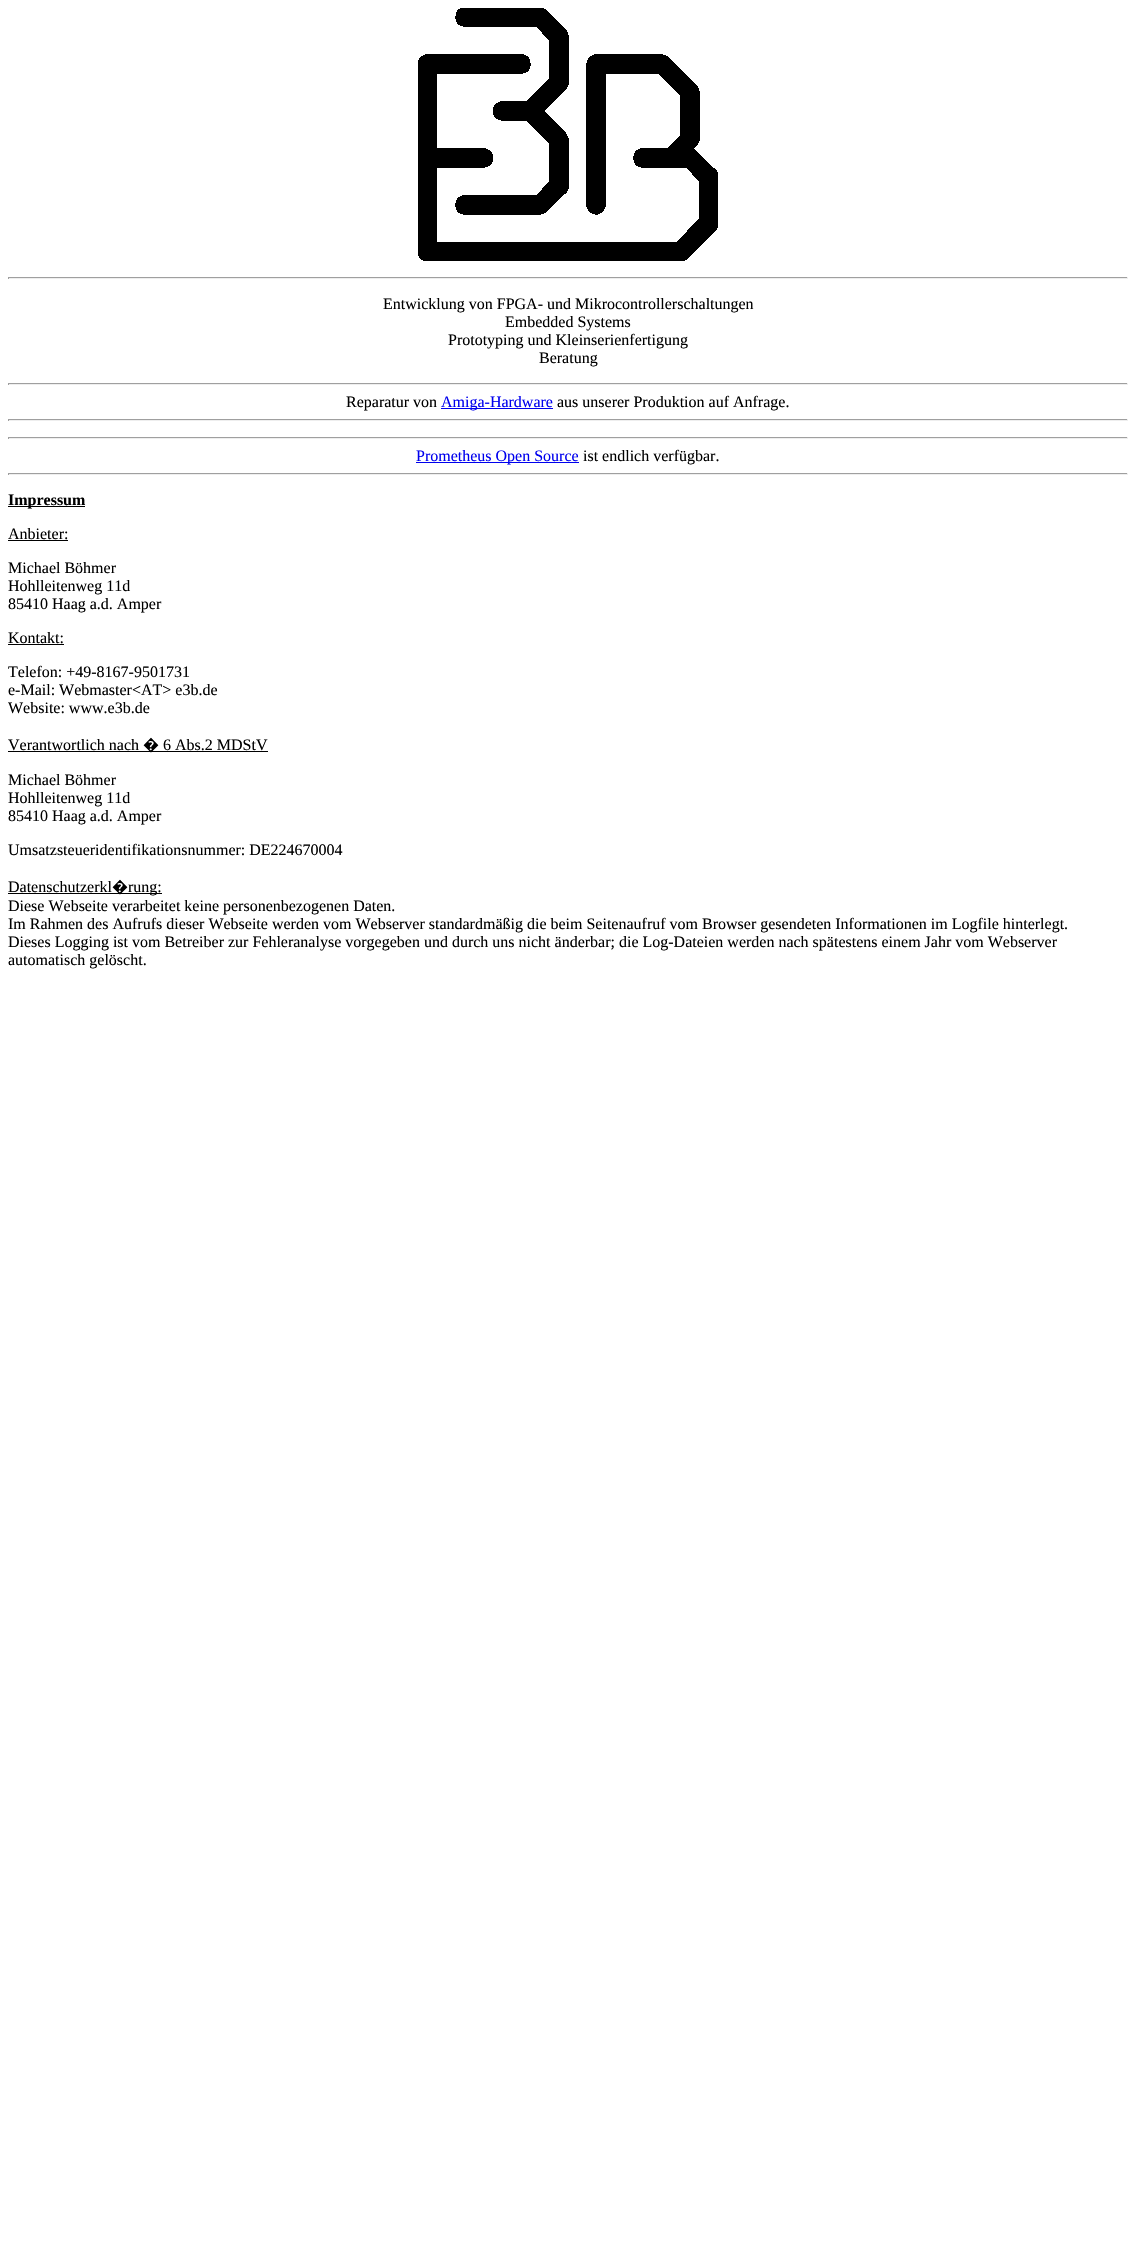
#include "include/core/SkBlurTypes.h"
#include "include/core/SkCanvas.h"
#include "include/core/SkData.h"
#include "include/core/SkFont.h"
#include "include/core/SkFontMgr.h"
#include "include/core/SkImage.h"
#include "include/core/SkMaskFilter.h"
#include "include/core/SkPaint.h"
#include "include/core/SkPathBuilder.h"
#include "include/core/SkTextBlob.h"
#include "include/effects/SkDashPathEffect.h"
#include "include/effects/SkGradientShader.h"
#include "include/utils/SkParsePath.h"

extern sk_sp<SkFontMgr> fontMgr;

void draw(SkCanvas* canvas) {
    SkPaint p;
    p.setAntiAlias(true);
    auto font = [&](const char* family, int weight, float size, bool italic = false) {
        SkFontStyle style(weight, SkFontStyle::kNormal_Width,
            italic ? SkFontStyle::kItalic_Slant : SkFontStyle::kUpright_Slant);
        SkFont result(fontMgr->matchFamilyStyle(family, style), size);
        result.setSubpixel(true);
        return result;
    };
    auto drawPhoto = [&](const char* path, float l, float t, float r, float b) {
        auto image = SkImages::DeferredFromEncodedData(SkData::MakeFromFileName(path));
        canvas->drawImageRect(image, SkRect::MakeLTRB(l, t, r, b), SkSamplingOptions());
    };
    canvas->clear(0xFFFFFFFF);
    drawPhoto("media/1.png", 418, 8, 718, 261);
    {
        const struct { float l, t, r, b; SkColor color; } items[] = {
            {8, 277, 1128, 278, 0xFF9F9F9F},
            {1127, 277, 1128, 279, 0xFFEEEEEE},
            {8, 278, 1128, 279, 0xFFEEEEEE},
            {8, 277, 9, 279, 0xFF9F9F9F},
        };
        for (auto [l, t, r, b, color] : items) {
            p.setColor(color);
            canvas->drawRect(SkRect::MakeLTRB(l, t, r, b), p);
        }
    }
    auto font1 = font("Liberation Serif", 400, 16);
    p.setColor(0xFF000000);
    {
        const struct { const char* s; float x, y; } items[] = {
            {"Entwicklung von FPGA- und Mikrocontrollerschaltungen", 383, 309},
            {"Embedded Systems", 505, 327},
            {"Prototyping und Kleinserienfertigung", 448, 345},
            {"Beratung", 539, 363},
        };
        for (auto [s, x, y] : items) {
            canvas->drawString(s, x, y, font1, p);
        }
    }
    {
        const struct { float l, t, r, b; SkColor color; } items[] = {
            {8, 383, 1128, 384, 0xFF9F9F9F},
            {1127, 383, 1128, 385, 0xFFEEEEEE},
            {8, 384, 1128, 385, 0xFFEEEEEE},
            {8, 383, 9, 385, 0xFF9F9F9F},
        };
        for (auto [l, t, r, b, color] : items) {
            p.setColor(color);
            canvas->drawRect(SkRect::MakeLTRB(l, t, r, b), p);
        }
    }
    p.setColor(0xFF000000);
    canvas->drawString("Reparatur von", 346, 407, font1, p);
    p.setColor(0xFF0000EE);
    canvas->drawRect(SkRect::MakeLTRB(441, 408, 553, 409), p);
    canvas->drawString("Amiga-Hardware", 441, 407, font1, p);
    p.setColor(0xFF000000);
    canvas->drawString("aus unserer Produktion auf Anfrage.", 557, 407, font1, p);
    {
        const struct { float l, t, r, b; SkColor color; } items[] = {
            {8, 419, 1128, 420, 0xFF9F9F9F},
            {1127, 419, 1128, 421, 0xFFEEEEEE},
            {8, 420, 1128, 421, 0xFFEEEEEE},
            {8, 419, 9, 421, 0xFF9F9F9F},
            {8, 437, 1128, 438, 0xFF9F9F9F},
            {1127, 437, 1128, 439, 0xFFEEEEEE},
            {8, 438, 1128, 439, 0xFFEEEEEE},
            {8, 437, 9, 439, 0xFF9F9F9F},
            {416, 462, 579, 463, 0xFF0000EE},
        };
        for (auto [l, t, r, b, color] : items) {
            p.setColor(color);
            canvas->drawRect(SkRect::MakeLTRB(l, t, r, b), p);
        }
    }
    canvas->drawString("Prometheus Open Source", 416, 461, font1, p);
    p.setColor(0xFF000000);
    canvas->drawString("ist endlich verfügbar.", 583, 461, font1, p);
    {
        const struct { float l, t, r, b; SkColor color; } items[] = {
            {8, 473, 1128, 474, 0xFF9F9F9F},
            {1127, 473, 1128, 475, 0xFFEEEEEE},
            {8, 474, 1128, 475, 0xFFEEEEEE},
            {8, 473, 9, 475, 0xFF9F9F9F},
            {8, 506, 85, 507, 0xFF000000},
        };
        for (auto [l, t, r, b, color] : items) {
            p.setColor(color);
            canvas->drawRect(SkRect::MakeLTRB(l, t, r, b), p);
        }
    }
    auto font2 = font("Liberation Serif", 700, 16);
    canvas->drawString("Impressum", 8, 505, font2, p);
    canvas->drawString("Anbieter:", 8, 539, font1, p);
    canvas->drawRect(SkRect::MakeLTRB(8, 540, 68, 541), p);
    {
        const struct { const char* s; float x, y; } items[] = {
            {"Michael Böhmer", 8, 573},
            {"Hohlleitenweg 11d", 8, 591},
            {"85410 Haag a.d. Amper", 8, 609},
            {"Kontakt:", 8, 643},
        };
        for (auto [s, x, y] : items) {
            canvas->drawString(s, x, y, font1, p);
        }
    }
    canvas->drawRect(SkRect::MakeLTRB(8, 644, 64, 645), p);
    {
        const struct { const char* s; float x, y; } items[] = {
            {"Telefon: +49-8167-9501731", 8, 677},
            {"e-Mail: Webmaster<AT> e3b.de", 8, 695},
            {"Website: www.e3b.de", 8, 713},
            {"Verantwortlich nach", 8, 750},
        };
        for (auto [s, x, y] : items) {
            canvas->drawString(s, x, y, font1, p);
        }
    }
    canvas->drawRect(SkRect::MakeLTRB(8, 751, 268, 752), p);
    auto font3 = font("Noto Sans", 400, 16);
    canvas->drawString("�", 143, 750, font3, p);
    {
        const struct { const char* s; float x, y; } items[] = {
            {"6 Abs.2 MDStV", 163, 750},
            {"Michael Böhmer", 8, 785},
            {"Hohlleitenweg 11d", 8, 803},
            {"85410 Haag a.d. Amper", 8, 821},
            {"Umsatzsteueridentifikationsnummer: DE224670004", 8, 855},
            {"Datenschutzerkl", 8, 892},
        };
        for (auto [s, x, y] : items) {
            canvas->drawString(s, x, y, font1, p);
        }
    }
    canvas->drawRect(SkRect::MakeLTRB(8, 893, 162, 894), p);
    canvas->drawString("�", 112, 892, font3, p);
    {
        const struct { const char* s; float x, y; } items[] = {
            {"rung:", 128, 892},
            {"Diese Webseite verarbeitet keine personenbezogenen Daten.", 8, 911},
            {"Im Rahmen des Aufrufs dieser Webseite werden vom Webserver standardmäßig die beim Seitenaufruf vom Browser gesendeten Informationen im Logfile hinterlegt.", 8, 929},
            {"Dieses Logging ist vom Betreiber zur Fehleranalyse vorgegeben und durch uns nicht änderbar; die Log-Dateien werden nach spätestens einem Jahr vom Webserver", 8, 947},
            {"automatisch gelöscht.", 8, 965},
        };
        for (auto [s, x, y] : items) {
            canvas->drawString(s, x, y, font1, p);
        }
    }
}
